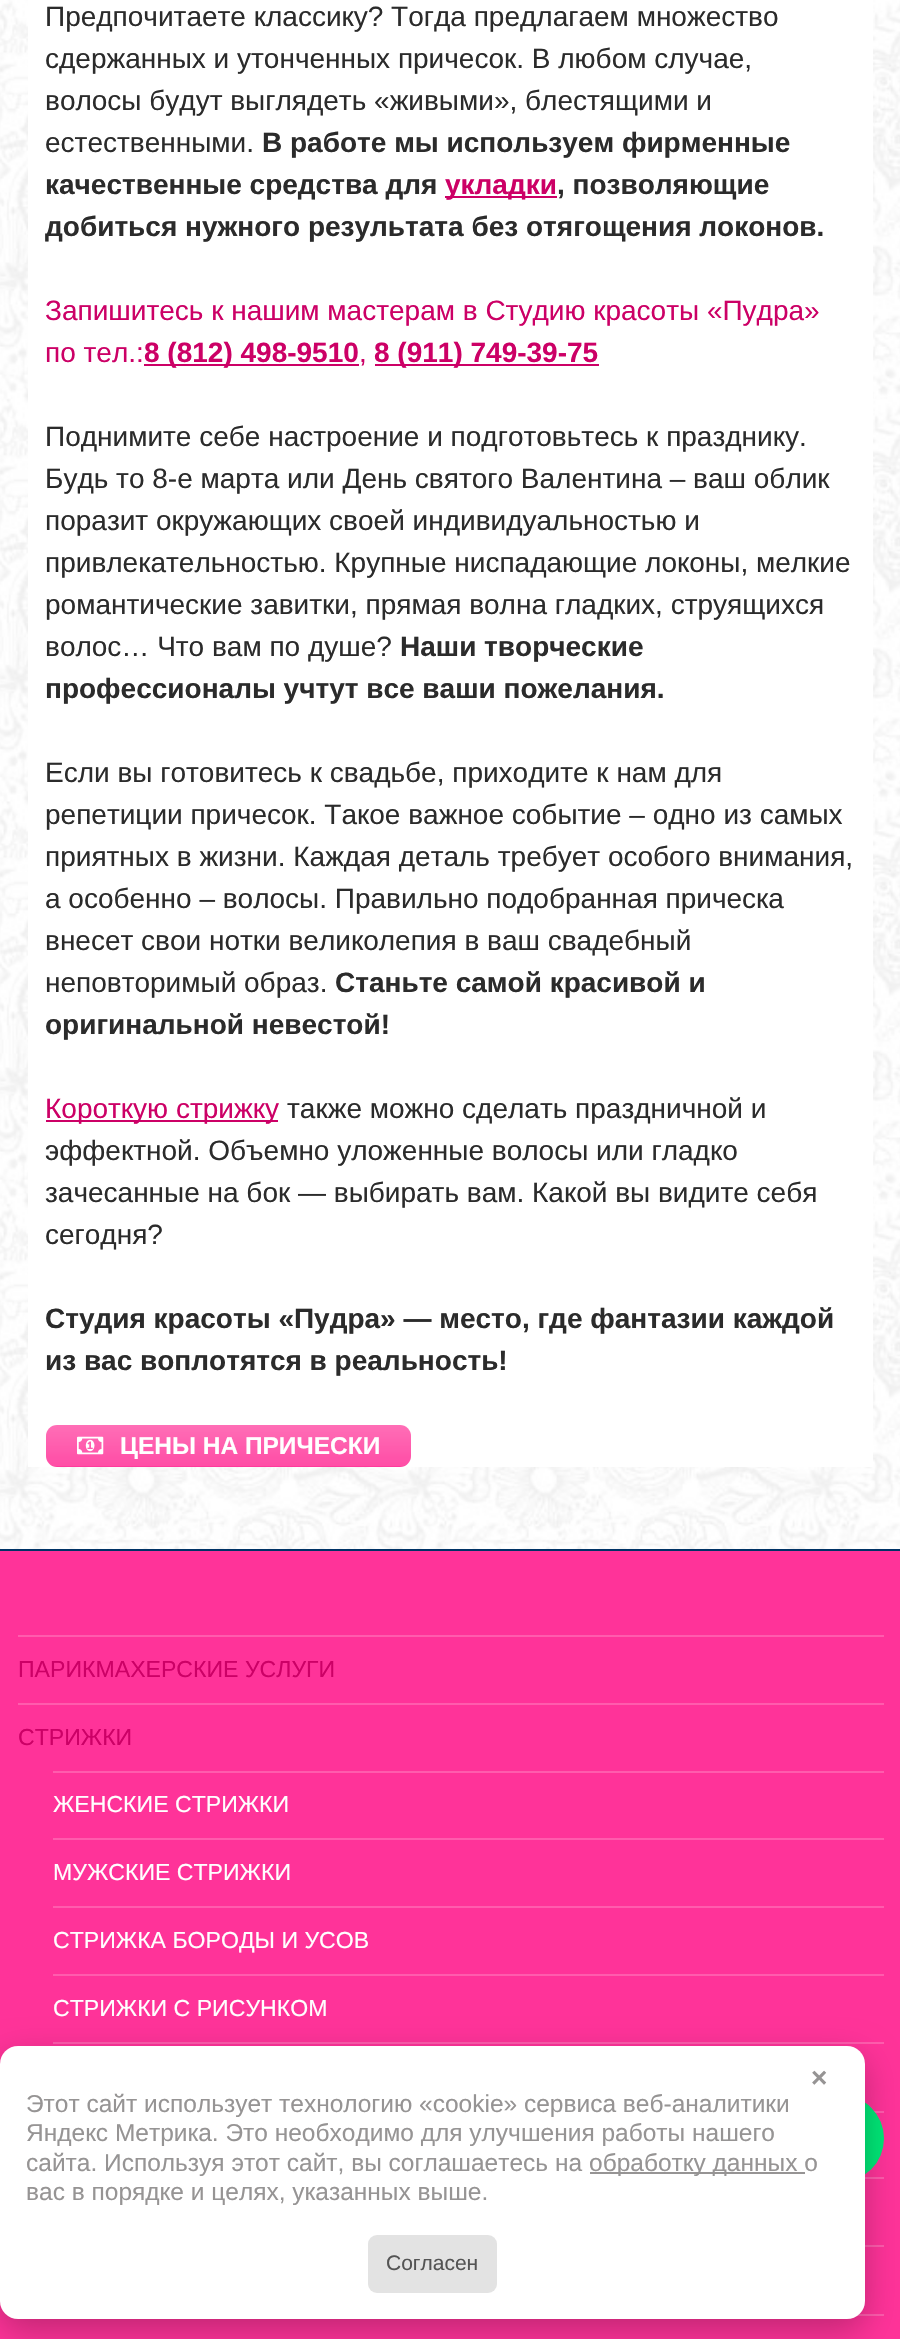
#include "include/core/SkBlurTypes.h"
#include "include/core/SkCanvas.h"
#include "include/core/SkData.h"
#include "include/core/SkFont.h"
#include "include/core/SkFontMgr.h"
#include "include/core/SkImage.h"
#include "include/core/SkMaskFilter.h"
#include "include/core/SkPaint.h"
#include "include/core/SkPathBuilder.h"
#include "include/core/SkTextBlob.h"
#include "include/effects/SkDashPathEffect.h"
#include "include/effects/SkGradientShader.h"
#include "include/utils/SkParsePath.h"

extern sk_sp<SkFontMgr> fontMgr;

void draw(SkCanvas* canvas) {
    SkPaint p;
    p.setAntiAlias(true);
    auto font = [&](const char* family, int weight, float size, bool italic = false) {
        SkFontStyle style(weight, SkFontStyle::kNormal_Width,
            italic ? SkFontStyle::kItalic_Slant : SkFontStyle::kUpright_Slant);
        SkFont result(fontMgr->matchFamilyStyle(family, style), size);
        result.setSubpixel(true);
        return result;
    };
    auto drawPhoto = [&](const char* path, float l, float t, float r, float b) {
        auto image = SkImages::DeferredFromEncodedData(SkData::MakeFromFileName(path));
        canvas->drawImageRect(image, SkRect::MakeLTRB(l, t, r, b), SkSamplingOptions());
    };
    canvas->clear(0xFFFFFFFF);
    drawPhoto("media/1.png", 0, 0, 900, 1549);
    p.setColor(0xFFFFFFFF);
    canvas->drawRect(SkRect::MakeLTRB(28, 0, 873, 1467), p);
    auto font1 = font("Liberation Sans", 400, 28);
    p.setColor(0xFF2B2B2B);
    {
        const struct { const char* s; float x, y; } items[] = {
            {"Предпочитаете классику? Тогда предлагаем множество", 45, 26},
            {"сдержанных и утонченных причесок. В любом случае,", 45, 68},
            {"волосы будут выглядеть «живыми», блестящими и", 45, 110},
            {"естественными.", 45, 152},
        };
        for (auto [s, x, y] : items) {
            canvas->drawString(s, x, y, font1, p);
        }
    }
    auto font2 = font("Liberation Sans", 700, 28);
    canvas->drawString("В работе мы используем фирменные", 262, 152, font2, p);
    canvas->drawString("качественные средства для", 45, 194, font2, p);
    p.setColor(0xFFCC0066);
    canvas->drawRect(SkRect::MakeLTRB(445, 196, 557, 198), p);
    canvas->drawString("укладки", 445, 194, font2, p);
    p.setColor(0xFF2B2B2B);
    canvas->drawString(", позволяющие", 557, 194, font2, p);
    canvas->drawString("добиться нужного результата без отягощения локонов.", 45, 236, font2, p);
    p.setColor(0xFFCC0066);
    canvas->drawString("Запишитесь к нашим мастерам в Студию красоты «Пудра»", 45, 320, font1, p);
    canvas->drawString("по тел.:", 45, 362, font1, p);
    canvas->drawRect(SkRect::MakeLTRB(144, 364, 359, 366), p);
    canvas->drawString("8 (812) 498-9510", 144, 362, font2, p);
    canvas->drawString(",", 359, 362, font1, p);
    canvas->drawRect(SkRect::MakeLTRB(375, 364, 599, 366), p);
    canvas->drawString("8 (911) 749-39-75", 374, 362, font2, p);
    p.setColor(0xFF2B2B2B);
    {
        const struct { const char* s; float x, y; } items[] = {
            {"Поднимите себе настроение и подготовьтесь к празднику.", 45, 446},
            {"Будь то 8-е марта или День святого Валентина – ваш облик", 45, 488},
            {"поразит окружающих своей индивидуальностью и", 45, 530},
            {"привлекательностью. Крупные ниспадающие локоны, мелкие", 45, 572},
            {"романтические завитки, прямая волна гладких, струящихся", 45, 614},
            {"волос… Что вам по душе?", 45, 656},
        };
        for (auto [s, x, y] : items) {
            canvas->drawString(s, x, y, font1, p);
        }
    }
    canvas->drawString("Наши творческие", 400, 656, font2, p);
    canvas->drawString("профессионалы учтут все ваши пожелания.", 45, 698, font2, p);
    {
        const struct { const char* s; float x, y; } items[] = {
            {"Если вы готовитесь к свадьбе, приходите к нам для", 45, 782},
            {"репетиции причесок. Такое важное событие – одно из самых", 45, 824},
            {"приятных в жизни. Каждая деталь требует особого внимания,", 45, 866},
            {"а особенно – волосы. Правильно подобранная прическа", 45, 908},
            {"внесет свои нотки великолепия в ваш свадебный", 45, 950},
            {"неповторимый образ.", 45, 992},
        };
        for (auto [s, x, y] : items) {
            canvas->drawString(s, x, y, font1, p);
        }
    }
    canvas->drawString("Станьте самой красивой и", 335, 992, font2, p);
    canvas->drawString("оригинальной невестой!", 45, 1034, font2, p);
    p.setColor(0xFFCC0066);
    canvas->drawRect(SkRect::MakeLTRB(46, 1120, 278, 1122), p);
    canvas->drawString("Короткую стрижку", 45, 1118, font1, p);
    p.setColor(0xFF2B2B2B);
    {
        const struct { const char* s; float x, y; } items[] = {
            {"также можно сделать праздничной и", 287, 1118},
            {"эффектной. Объемно уложенные волосы или гладко", 45, 1160},
            {"зачесанные на бок — выбирать вам. Какой вы видите себя", 45, 1202},
            {"сегодня?", 45, 1244},
        };
        for (auto [s, x, y] : items) {
            canvas->drawString(s, x, y, font1, p);
        }
    }
    canvas->drawString("Студия красоты «Пудра» — место, где фантазии каждой", 45, 1328, font2, p);
    canvas->drawString("из вас воплотятся в реальность!", 45, 1370, font2, p);
    p.setColor(0xFFFF3399);
    canvas->drawRoundRect(SkRect::MakeLTRB(46, 1425, 411, 1467), 11, 11, p);
    drawPhoto("media/2.png", 46, 1425, 411, 1467);
    drawPhoto("media/3.png", 77, 1436, 104, 1455);
    auto font3 = font("Liberation Sans", 700, 24.5f);
    p.setColor(0xFFFFFFFF);
    canvas->drawString("ЦЕНЫ НА ПРИЧЕСКИ", 120, 1454, font3, p);
    {
        const struct { float l, t, r, b; SkColor color; } items[] = {
            {0, 1551, 900, 2339, 0xFFFF3399},
            {0, 1549, 900, 1551, 0xFF003366},
            {18, 1635, 884, 1637, 0xFFFF5CAD},
        };
        for (auto [l, t, r, b, color] : items) {
            p.setColor(color);
            canvas->drawRect(SkRect::MakeLTRB(l, t, r, b), p);
        }
    }
    auto font4 = font("Liberation Sans", 400, 23.1f);
    p.setColor(0xFFCC0066);
    canvas->drawString("ПАРИКМАХЕРСКИЕ УСЛУГИ", 18, 1677, font4, p);
    p.setColor(0xFFFF5CAD);
    canvas->drawRect(SkRect::MakeLTRB(18, 1703, 884, 1705), p);
    p.setColor(0xFFCC0066);
    canvas->drawString("СТРИЖКИ", 18, 1745, font4, p);
    p.setColor(0xFFFF5CAD);
    canvas->drawRect(SkRect::MakeLTRB(53, 1771, 884, 1773), p);
    p.setColor(0xFFFFFFFF);
    canvas->drawString("ЖЕНСКИЕ СТРИЖКИ", 53, 1812, font4, p);
    p.setColor(0xFFFF5CAD);
    canvas->drawRect(SkRect::MakeLTRB(53, 1838, 884, 1840), p);
    p.setColor(0xFFFFFFFF);
    canvas->drawString("МУЖСКИЕ СТРИЖКИ", 53, 1880, font4, p);
    p.setColor(0xFFFF5CAD);
    canvas->drawRect(SkRect::MakeLTRB(53, 1906, 884, 1908), p);
    p.setColor(0xFFFFFFFF);
    canvas->drawString("CТРИЖКА БОРОДЫ И УСОВ", 53, 1948, font4, p);
    p.setColor(0xFFFF5CAD);
    canvas->drawRect(SkRect::MakeLTRB(53, 1974, 884, 1976), p);
    p.setColor(0xFFFFFFFF);
    canvas->drawString("СТРИЖКИ С РИСУНКОМ", 53, 2016, font4, p);
    {
        const struct { float l, t, r, b; SkColor color; } items[] = {
            {53, 2042, 884, 2044, 0xFFFF5CAD},
            {874, 2111, 884, 2113, 0xFFFF5CAD},
            {865, 2177, 884, 2179, 0xFFFF5CAD},
            {865, 2245, 884, 2247, 0xFFFF5CAD},
            {857, 2314, 884, 2316, 0xFFFF5CAD},
        };
        for (auto [l, t, r, b, color] : items) {
            p.setColor(color);
            canvas->drawRect(SkRect::MakeLTRB(l, t, r, b), p);
        }
    }
    p.setColor(0xFF00E676);
    canvas->drawRoundRect(SkRect::MakeLTRB(796, 2095, 884, 2182), 43.5f, 43.5f, p);
    p.setColor(0x40000000);
    p.setMaskFilter(SkMaskFilter::MakeBlur(kNormal_SkBlurStyle, 17.5f));
    canvas->drawRoundRect(SkRect::MakeLTRB(0, 2058, 865, 2331), 18, 18, p);
    p.setMaskFilter(nullptr);
    p.setColor(0xFFFFFFFF);
    canvas->drawRoundRect(SkRect::MakeLTRB(0, 2046, 865, 2319), 18, 18, p);
    p.setColor(0xFF969494);
    canvas->drawString("×", 811, 2087, font2, p);
    auto font5 = font("Liberation Sans", 400, 24.5f);
    {
        const struct { const char* s; float x, y; } items[] = {
            {"Этот сайт использует технологию «cookie» сервиса веб-аналитики", 26, 2112},
            {"Яндекс Метрика. Это необходимо для улучшения работы нашего", 26, 2141},
            {"сайта. Используя этот сайт, вы соглашаетесь на", 26, 2171},
        };
        for (auto [s, x, y] : items) {
            canvas->drawString(s, x, y, font5, p);
        }
    }
    canvas->drawRect(SkRect::MakeLTRB(590, 2172, 805, 2174), p);
    canvas->drawString("обработку данных о", 589, 2171, font5, p);
    canvas->drawString("вас в порядке и целях, указанных выше.", 26, 2200, font5, p);
    p.setColor(0xFFE3E3E3);
    canvas->drawRoundRect(SkRect::MakeLTRB(368, 2235, 497, 2293), 9, 9, p);
    auto font6 = font("Liberation Sans", 400, 21);
    p.setColor(0xFF545454);
    canvas->drawString("Согласен", 386, 2270, font6, p);
}
